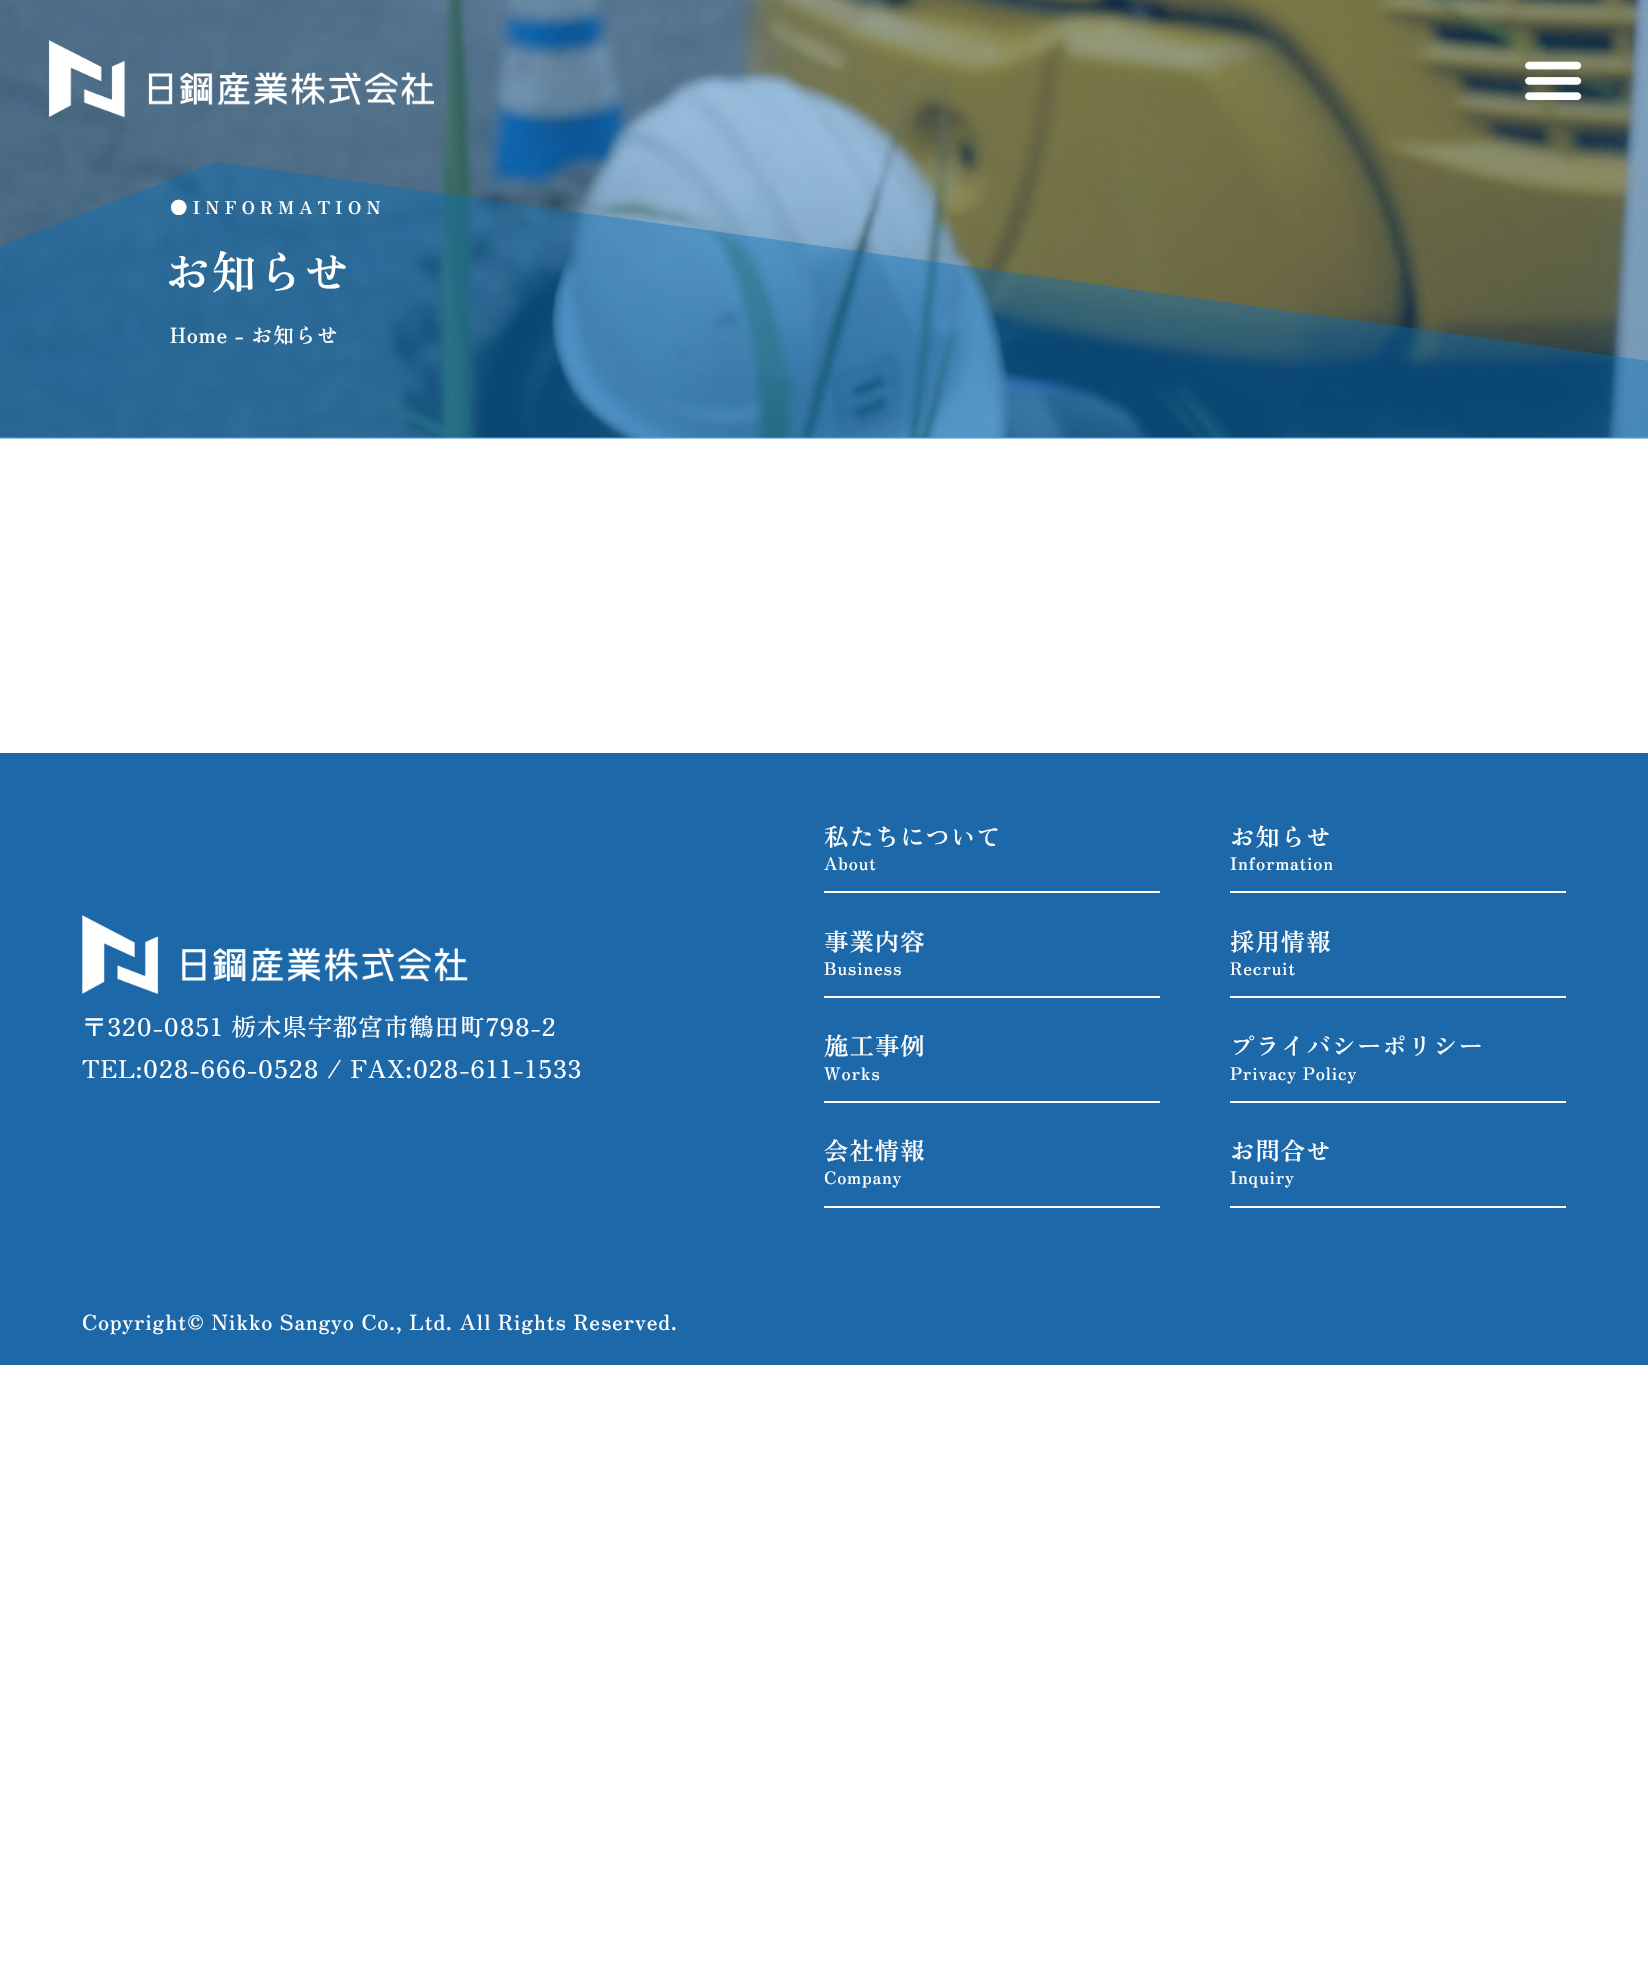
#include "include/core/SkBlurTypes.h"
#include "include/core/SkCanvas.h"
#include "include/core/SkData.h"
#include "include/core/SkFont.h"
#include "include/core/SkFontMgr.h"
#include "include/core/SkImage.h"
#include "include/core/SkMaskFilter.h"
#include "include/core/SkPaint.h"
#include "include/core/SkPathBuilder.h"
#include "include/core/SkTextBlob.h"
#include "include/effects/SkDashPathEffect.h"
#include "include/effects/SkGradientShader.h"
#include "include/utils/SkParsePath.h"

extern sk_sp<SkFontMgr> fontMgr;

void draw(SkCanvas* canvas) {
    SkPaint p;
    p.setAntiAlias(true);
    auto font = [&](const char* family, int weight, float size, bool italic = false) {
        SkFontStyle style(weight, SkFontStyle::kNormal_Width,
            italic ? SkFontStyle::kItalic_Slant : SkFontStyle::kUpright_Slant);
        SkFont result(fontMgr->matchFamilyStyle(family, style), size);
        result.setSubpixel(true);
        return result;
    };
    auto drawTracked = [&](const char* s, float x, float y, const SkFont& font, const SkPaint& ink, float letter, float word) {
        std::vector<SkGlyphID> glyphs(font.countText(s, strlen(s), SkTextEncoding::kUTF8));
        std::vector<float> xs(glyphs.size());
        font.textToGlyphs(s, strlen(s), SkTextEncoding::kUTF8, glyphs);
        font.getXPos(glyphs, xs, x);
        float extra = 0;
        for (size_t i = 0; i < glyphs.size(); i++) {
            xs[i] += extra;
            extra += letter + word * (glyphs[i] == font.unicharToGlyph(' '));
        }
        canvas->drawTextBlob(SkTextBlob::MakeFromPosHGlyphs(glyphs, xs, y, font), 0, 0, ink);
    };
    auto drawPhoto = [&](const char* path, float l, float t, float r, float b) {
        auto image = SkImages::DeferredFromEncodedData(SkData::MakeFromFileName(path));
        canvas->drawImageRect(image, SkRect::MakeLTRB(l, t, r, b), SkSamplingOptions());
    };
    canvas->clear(0xFFFFFFFF);
    p.setColor(0xFFA5C3DC);
    canvas->drawRect(SkRect::MakeLTRB(0, 437, 1648, 438), p);
    drawPhoto("media/3.png", 0, 0, 1648, 438);
    drawPhoto("media/1.png", 49, 40, 434, 118);
    drawPhoto("media/2.png", 1525, 61, 1582, 100);
    p.setColor(0x66036EB8);
    canvas->drawPath(SkPathBuilder().moveTo(216, 162).lineTo(-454, 422).lineTo(-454, 439).lineTo(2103, 439).lineTo(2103, 424).close().detach(), p);
    auto font1 = font("Zen Old Mincho", 900, 17.5f);
    p.setColor(0xFFFFFFFF);
    drawTracked("●INFORMATION", 170, 214, font1, p, 5.25f, 0);
    auto font2 = font("Zen Old Mincho", 600, 45.5f);
    drawTracked("お知らせ", 165, 289, font2, p, 0.88f, 0);
    auto font3 = font("Zen Old Mincho", 600, 21);
    drawTracked("Home - お知らせ", 170, 343, font3, p, 0.88f, 0);
    p.setColor(0xFF1D68A8);
    canvas->drawRect(SkRect::MakeLTRB(0, 753, 1648, 1365), p);
    drawPhoto("media/4.png", 82, 915, 468, 994);
    auto font4 = font("Zen Old Mincho", 500, 24.5f);
    p.setColor(0xFFFFFFFF);
    drawTracked("〒320-0851 栃木県宇都宮市鶴田町798-2", 82, 1036, font4, p, 0.88f, 0);
    drawTracked("TEL:028-666-0528 / FAX:028-611-1533", 82, 1078, font4, p, 0.88f, 0);
    canvas->drawRect(SkRect::MakeLTRB(824, 891, 1160, 893), p);
    auto font5 = font("Zen Old Mincho", 600, 24.5f);
    drawTracked("私たちについて", 824, 846, font5, p, 0.88f, 0);
    auto font6 = font("Zen Old Mincho", 600, 17.25f);
    drawTracked("About", 824, 870, font6, p, 0.88f, 0);
    canvas->drawRect(SkRect::MakeLTRB(824, 996, 1160, 998), p);
    drawTracked("事業内容", 824, 951, font5, p, 0.88f, 0);
    drawTracked("Business", 824, 975, font6, p, 0.88f, 0);
    canvas->drawRect(SkRect::MakeLTRB(824, 1101, 1160, 1103), p);
    drawTracked("施工事例", 824, 1055, font5, p, 0.88f, 0);
    drawTracked("Works", 824, 1080, font6, p, 0.88f, 0);
    canvas->drawRect(SkRect::MakeLTRB(824, 1206, 1160, 1208), p);
    drawTracked("会社情報", 824, 1160, font5, p, 0.88f, 0);
    drawTracked("Company", 824, 1184, font6, p, 0.88f, 0);
    canvas->drawRect(SkRect::MakeLTRB(1230, 891, 1566, 893), p);
    drawTracked("お知らせ", 1230, 846, font5, p, 0.88f, 0);
    drawTracked("Information", 1230, 870, font6, p, 0.88f, 0);
    canvas->drawRect(SkRect::MakeLTRB(1230, 996, 1566, 998), p);
    drawTracked("採用情報", 1230, 951, font5, p, 0.88f, 0);
    drawTracked("Recruit", 1230, 975, font6, p, 0.88f, 0);
    canvas->drawRect(SkRect::MakeLTRB(1230, 1101, 1566, 1103), p);
    drawTracked("プライバシーポリシー", 1230, 1055, font5, p, 0.88f, 0);
    drawTracked("Privacy Policy", 1230, 1080, font6, p, 0.88f, 0);
    canvas->drawRect(SkRect::MakeLTRB(1230, 1206, 1566, 1208), p);
    drawTracked("お問合せ", 1230, 1160, font5, p, 0.88f, 0);
    drawTracked("Inquiry", 1230, 1184, font6, p, 0.88f, 0);
    drawTracked("Copyright© Nikko Sangyo Co., Ltd. All Rights Reserved.", 82, 1330, font3, p, 0.88f, 0);
}
